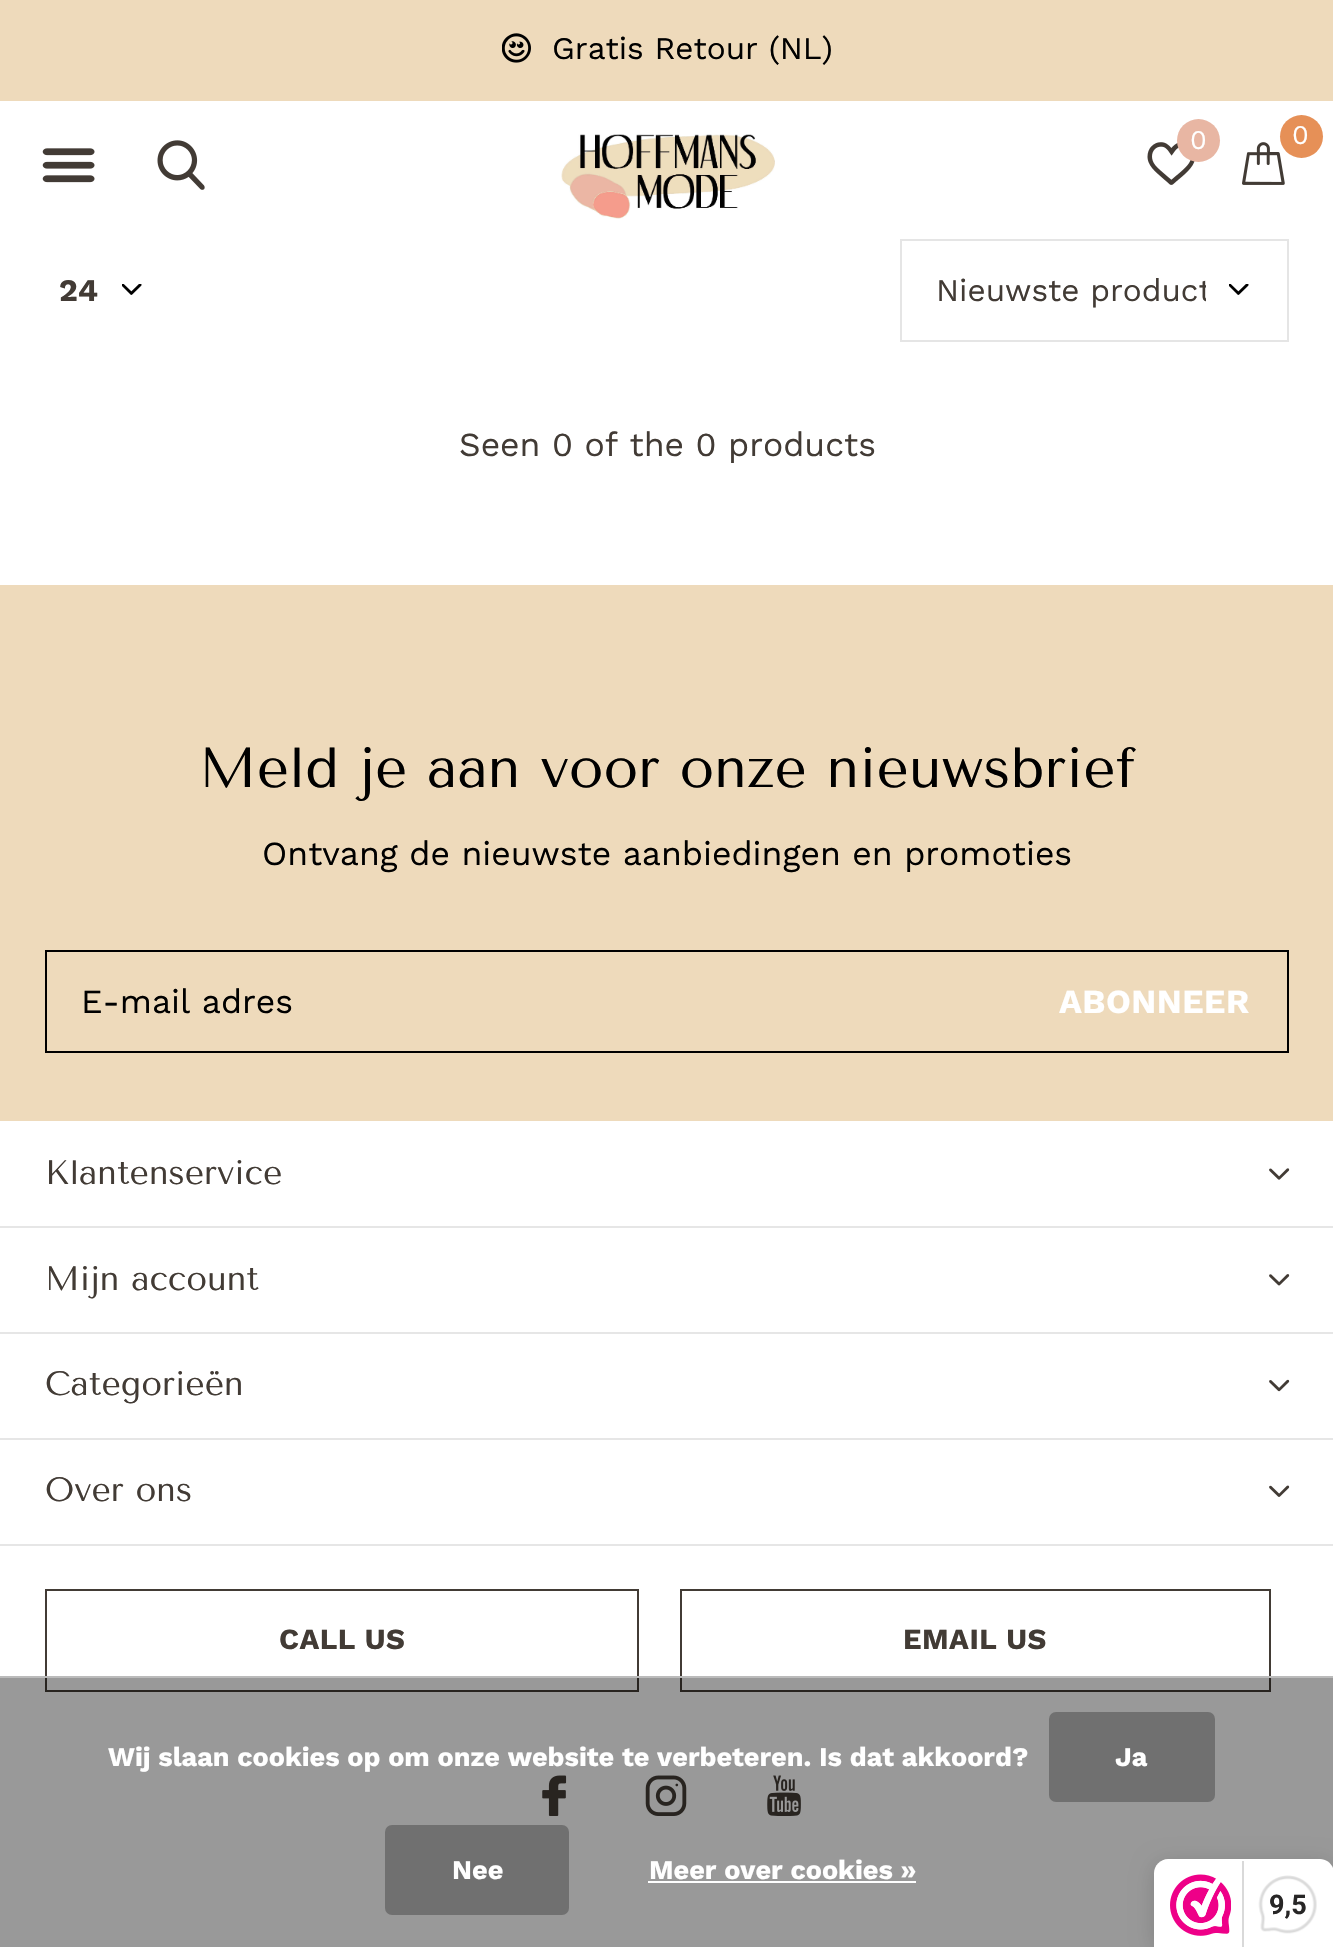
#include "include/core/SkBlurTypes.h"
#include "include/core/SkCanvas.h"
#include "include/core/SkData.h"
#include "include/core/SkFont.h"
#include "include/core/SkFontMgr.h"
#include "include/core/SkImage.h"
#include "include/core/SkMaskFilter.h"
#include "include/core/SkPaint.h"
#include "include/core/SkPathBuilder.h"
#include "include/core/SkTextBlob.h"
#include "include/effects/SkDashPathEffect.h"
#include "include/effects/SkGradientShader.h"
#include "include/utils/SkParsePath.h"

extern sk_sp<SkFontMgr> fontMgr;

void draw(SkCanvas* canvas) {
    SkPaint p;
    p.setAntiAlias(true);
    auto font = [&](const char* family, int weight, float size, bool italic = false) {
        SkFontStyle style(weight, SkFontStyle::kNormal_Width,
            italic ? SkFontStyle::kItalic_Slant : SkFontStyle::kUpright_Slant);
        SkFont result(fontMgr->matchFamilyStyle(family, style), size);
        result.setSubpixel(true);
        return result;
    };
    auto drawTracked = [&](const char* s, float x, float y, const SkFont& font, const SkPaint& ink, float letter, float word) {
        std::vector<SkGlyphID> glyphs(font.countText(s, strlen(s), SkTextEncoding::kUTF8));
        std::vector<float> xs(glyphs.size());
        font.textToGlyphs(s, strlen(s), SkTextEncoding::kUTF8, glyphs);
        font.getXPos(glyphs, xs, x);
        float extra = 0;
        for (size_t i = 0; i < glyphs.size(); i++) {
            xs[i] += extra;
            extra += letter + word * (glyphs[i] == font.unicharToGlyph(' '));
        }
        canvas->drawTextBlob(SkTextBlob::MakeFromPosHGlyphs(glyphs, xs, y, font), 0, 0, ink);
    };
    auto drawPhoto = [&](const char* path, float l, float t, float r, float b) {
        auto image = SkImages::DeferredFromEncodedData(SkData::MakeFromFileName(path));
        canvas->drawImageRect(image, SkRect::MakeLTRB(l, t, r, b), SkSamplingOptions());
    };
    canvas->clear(0xFFFFFFFF);
    p.setColor(0xFFEEDABB);
    canvas->drawRect(SkRect::MakeLTRB(0, 0, 1333, 101), p);
    drawPhoto("media/1.png", 502, 33, 531, 63);
    auto font1 = font("Work Sans", 400, 31.5f);
    p.setColor(0xFF000000);
    canvas->drawString("Gratis Retour (NL)", 552, 59, font1, p);
    drawPhoto("media/2.png", 42, 148, 95, 183);
    drawPhoto("media/3.png", 561, 134, 775, 219);
    drawPhoto("media/4.png", 157, 140, 205, 190);
    drawPhoto("media/5.png", 1147, 142, 1195, 185);
    p.setColor(0xFFE8B6A3);
    canvas->drawCircle(1198.5f, 140.5f, 21.5f, p);
    auto font2 = font("Work Sans", 400, 27);
    p.setColor(0xFFFFFFFF);
    canvas->drawString("0", 1190, 149, font2, p);
    drawPhoto("media/6.png", 1242, 142, 1285, 185);
    p.setColor(0xFFE69057);
    canvas->drawCircle(1301.5f, 136.5f, 21.5f, p);
    p.setColor(0xFFFFFFFF);
    canvas->drawString("0", 1292, 144, font2, p);
    drawPhoto("media/7.png", 122, 284, 142, 295);
    auto font3 = font("Work Sans", 700, 31.5f);
    p.setColor(0xFF423B35);
    canvas->drawString("24", 59, 301, font3, p);
    drawPhoto("media/7.png", 1229, 284, 1249, 295);
    p.setStyle(SkPaint::kStroke_Style);
    p.setStrokeWidth(2);
    p.setColor(0xFFE5E5E5);
    canvas->drawRect(SkRect::MakeLTRB(901, 240, 1288, 341), p);
    canvas->save();
    canvas->clipRect(SkRect::MakeLTRB(936, 272, 1206, 308));
    p.setStyle(SkPaint::kFill_Style);
    p.setColor(0xFF423B35);
    canvas->drawString("Nieuwste product", 936, 301, font1, p);
    canvas->restore();
    auto font4 = font("Work Sans", 400, 33.75f);
    canvas->drawString("Seen 0 of the 0 products", 459, 456, font4, p);
    p.setColor(0xFFEEDABB);
    canvas->drawRect(SkRect::MakeLTRB(0, 585, 1333, 1121), p);
    auto font5 = font("Tenor Sans", 400, 56.25f);
    p.setColor(0xFF000000);
    canvas->drawString("Meld je aan voor onze nieuwsbrief", 199, 787, font5, p);
    canvas->drawString("Ontvang de nieuwste aanbiedingen en promoties", 262, 865, font4, p);
    p.setStyle(SkPaint::kStroke_Style);
    canvas->drawRect(SkRect::MakeLTRB(46, 951, 1288, 1052), p);
    p.setStyle(SkPaint::kFill_Style);
    canvas->drawString("E-mail adres", 81, 1013, font4, p);
    auto font6 = font("Work Sans", 700, 33.75f);
    p.setColor(0xFFFFFFFF);
    drawTracked("ABONNEER", 1059, 1013, font6, p, 0.5f, 0);
    auto font7 = font("Tenor Sans", 400, 33.75f);
    p.setColor(0xFF423B35);
    canvas->drawString("Klantenservice", 45, 1184, font7, p);
    drawPhoto("media/8.png", 1269, 1168, 1290, 1180);
    p.setColor(0xFFE6E6E6);
    canvas->drawRect(SkRect::MakeLTRB(0, 1226, 1333, 1228), p);
    p.setColor(0xFF423B35);
    canvas->drawString("Mijn account", 45, 1290, font7, p);
    drawPhoto("media/9.png", 1269, 1274, 1290, 1286);
    p.setColor(0xFFE6E6E6);
    canvas->drawRect(SkRect::MakeLTRB(0, 1332, 1333, 1334), p);
    p.setColor(0xFF423B35);
    canvas->drawString("Categorieën", 45, 1395, font7, p);
    drawPhoto("media/10.png", 1269, 1379, 1290, 1392);
    p.setColor(0xFFE6E6E6);
    canvas->drawRect(SkRect::MakeLTRB(0, 1438, 1333, 1440), p);
    p.setColor(0xFF423B35);
    canvas->drawString("Over ons", 45, 1501, font7, p);
    drawPhoto("media/11.png", 1269, 1485, 1290, 1497);
    p.setColor(0xFFE6E6E6);
    canvas->drawRect(SkRect::MakeLTRB(0, 1544, 1333, 1546), p);
    p.setStyle(SkPaint::kStroke_Style);
    p.setColor(0xFF423B35);
    canvas->drawRect(SkRect::MakeLTRB(46, 1590, 638, 1691), p);
    auto font8 = font("Work Sans", 700, 29.25f);
    p.setStyle(SkPaint::kFill_Style);
    drawTracked("CALL US", 279, 1649, font8, p, 0.5f, 0);
    p.setStyle(SkPaint::kStroke_Style);
    canvas->drawRect(SkRect::MakeLTRB(681, 1590, 1270, 1691), p);
    p.setStyle(SkPaint::kFill_Style);
    drawTracked("EMAIL US", 903, 1649, font8, p, 0.5f, 0);
    drawPhoto("media/12.png", 542, 1775, 567, 1816);
    drawPhoto("media/13.png", 645, 1775, 687, 1816);
    drawPhoto("media/14.png", 767, 1775, 801, 1816);
    p.setColor(0x66000000);
    canvas->drawRect(SkRect::MakeLTRB(0, 1678, 1333, 1947), p);
    p.setColor(0xFFBBBBBB);
    canvas->drawRect(SkRect::MakeLTRB(0, 1676, 1333, 1678), p);
    auto font9 = font("Work Sans", 700, 27);
    p.setColor(0xFFFFFFFF);
    canvas->drawString("Wij slaan cookies op om onze website te verbeteren. Is dat akkoord?", 108, 1766, font9, p);
    p.setColor(0xFF707070);
    canvas->drawRoundRect(SkRect::MakeLTRB(1049, 1712, 1215, 1802), 7, 7, p);
    p.setColor(0xFFFFFFFF);
    canvas->drawString("Ja", 1115, 1766, font9, p);
    p.setColor(0xFF707070);
    canvas->drawRoundRect(SkRect::MakeLTRB(385, 1825, 569, 1915), 7, 7, p);
    p.setColor(0xFFFFFFFF);
    canvas->drawString("Nee", 452, 1879, font9, p);
    canvas->drawString("Meer over cookies »", 649, 1879, font9, p);
    canvas->drawRect(SkRect::MakeLTRB(648, 1881, 916, 1883), p);
    p.setColor(0x26000000);
    p.setMaskFilter(SkMaskFilter::MakeBlur(kNormal_SkBlurStyle, 11));
    canvas->drawRoundRect(SkRect::MakeLTRB(1154, 1863, 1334, 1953), 14, 14, p);
    p.setMaskFilter(nullptr);
    p.setColor(0xFFFFFFFF);
    canvas->drawPath(SkPathBuilder().moveTo(1168, 1859).lineTo(1320, 1859).cubicTo(1327.5f, 1859, 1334, 1865.5f, 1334, 1873).lineTo(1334, 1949).lineTo(1154, 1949).lineTo(1154, 1873).cubicTo(1154, 1865.5f, 1160.5f, 1859, 1168, 1859).close().detach(), p);
    drawPhoto("media/15.png", 1170, 1874, 1231, 1936);
    p.setColor(0xFFD9D9D9);
    canvas->drawRect(SkRect::MakeLTRB(1242, 1861, 1244, 1947), p);
    drawPhoto("media/16.png", 1258, 1875, 1317, 1934);
    auto font10 = font("Roboto", 700, 27);
    p.setColor(0xFF272626);
    canvas->drawString("9,5", 1269, 1914, font10, p);
}
